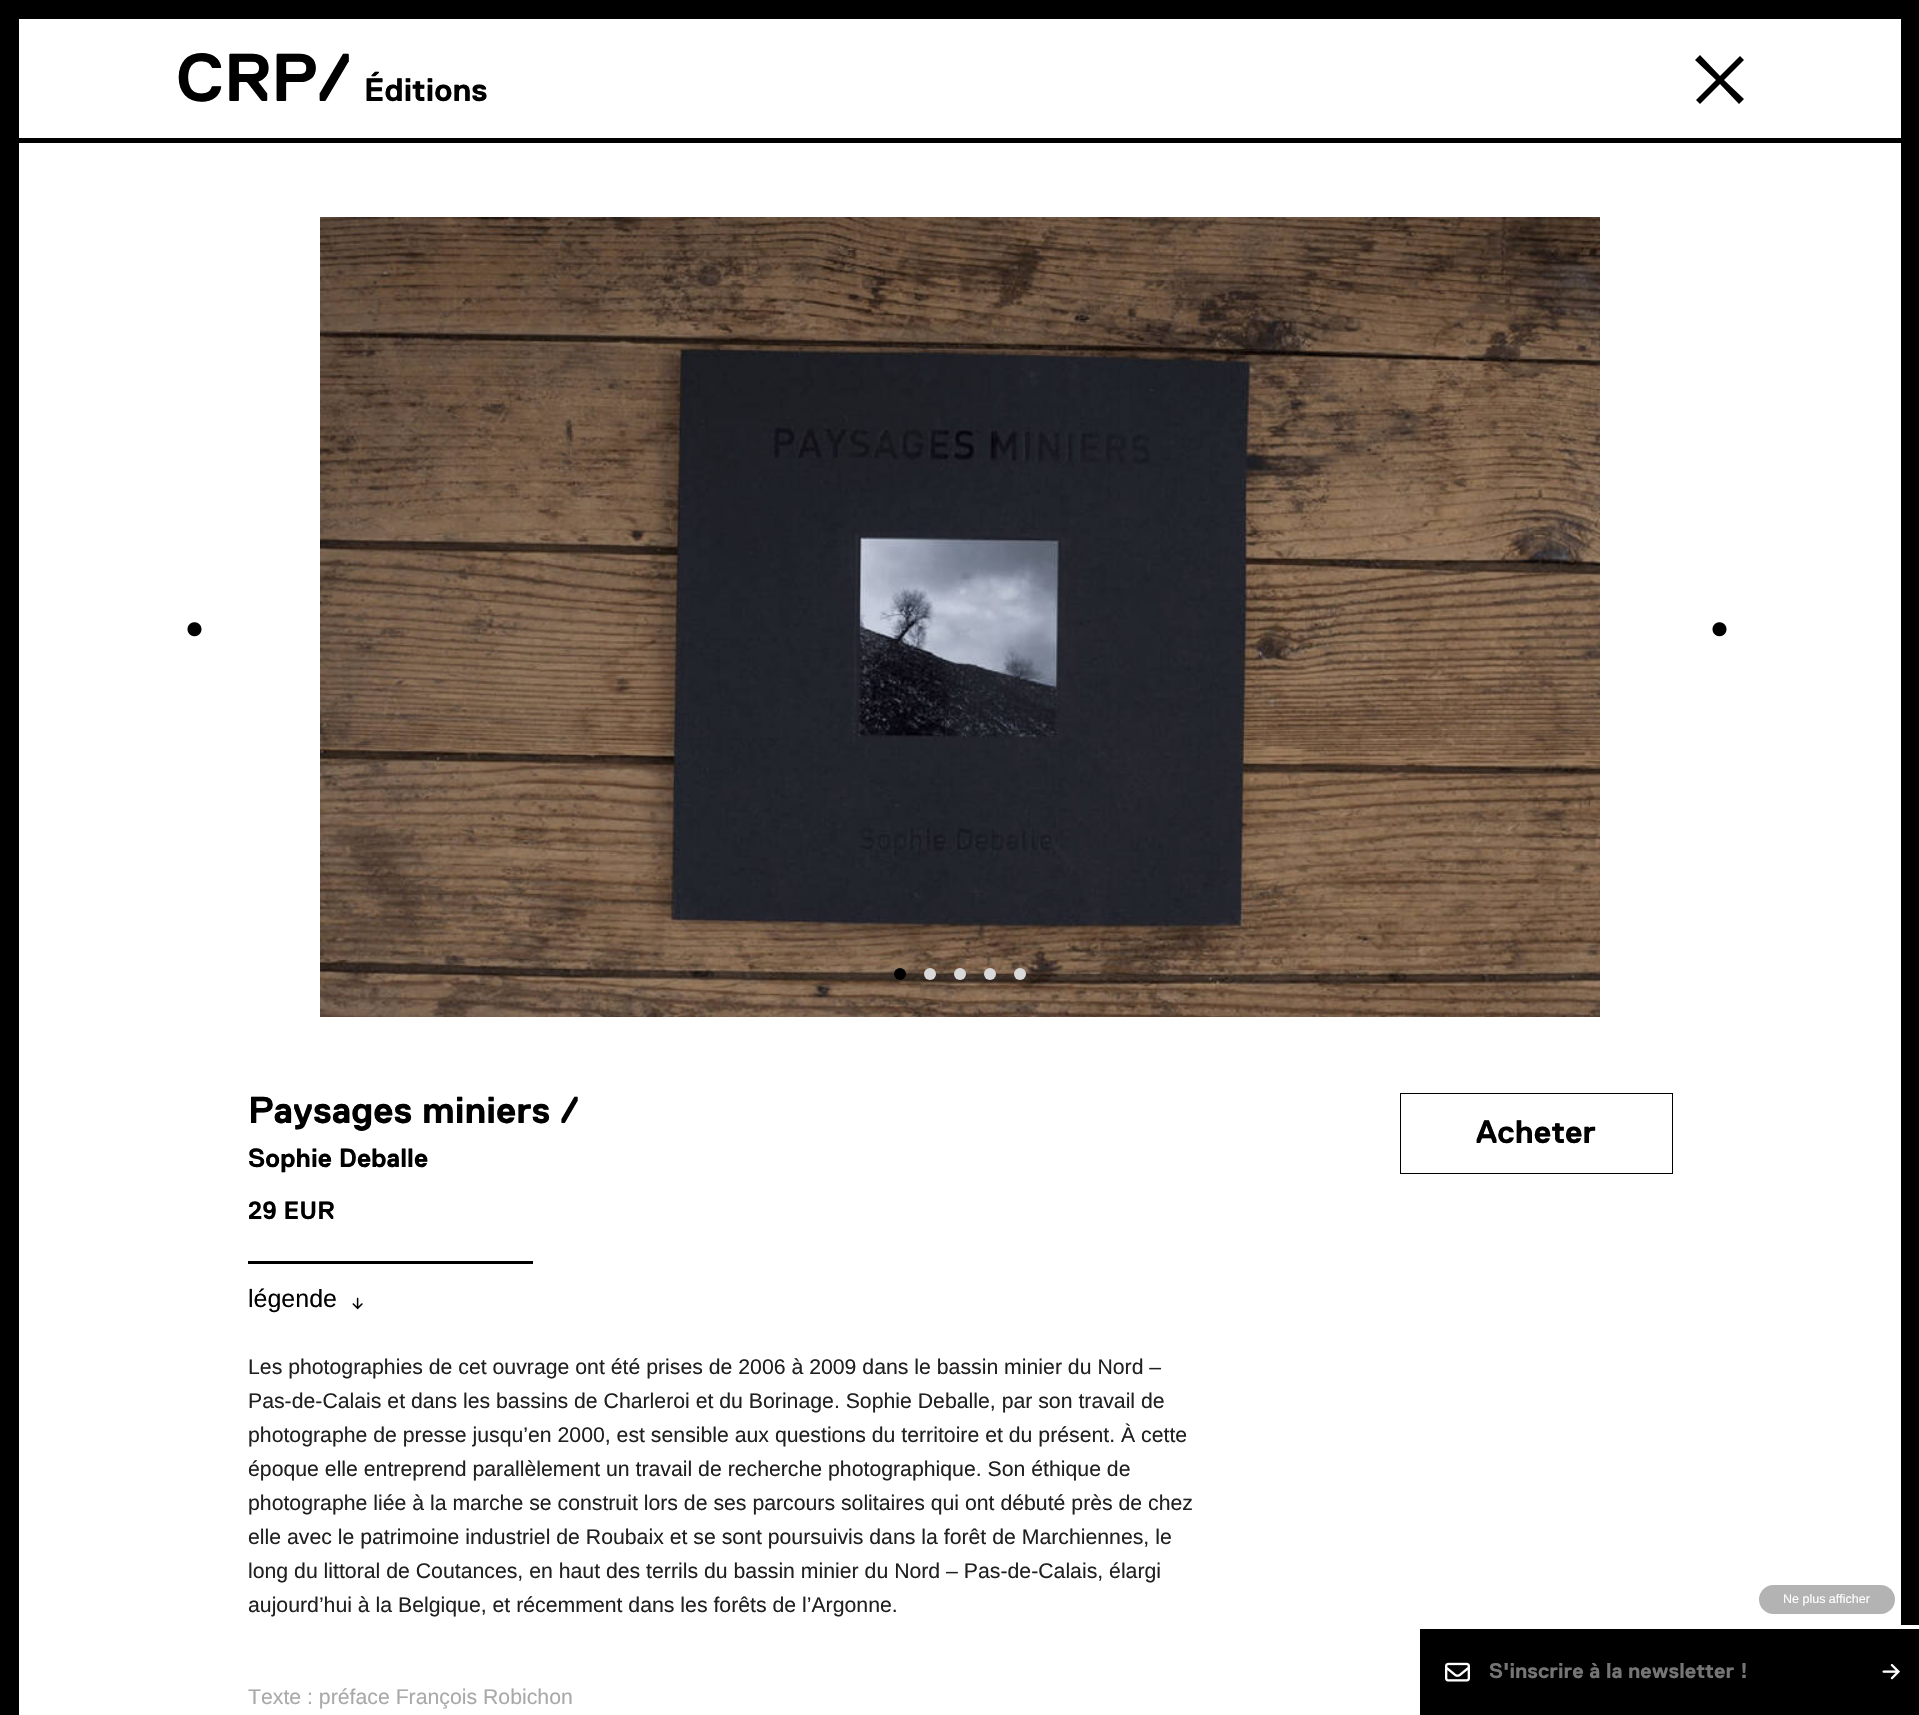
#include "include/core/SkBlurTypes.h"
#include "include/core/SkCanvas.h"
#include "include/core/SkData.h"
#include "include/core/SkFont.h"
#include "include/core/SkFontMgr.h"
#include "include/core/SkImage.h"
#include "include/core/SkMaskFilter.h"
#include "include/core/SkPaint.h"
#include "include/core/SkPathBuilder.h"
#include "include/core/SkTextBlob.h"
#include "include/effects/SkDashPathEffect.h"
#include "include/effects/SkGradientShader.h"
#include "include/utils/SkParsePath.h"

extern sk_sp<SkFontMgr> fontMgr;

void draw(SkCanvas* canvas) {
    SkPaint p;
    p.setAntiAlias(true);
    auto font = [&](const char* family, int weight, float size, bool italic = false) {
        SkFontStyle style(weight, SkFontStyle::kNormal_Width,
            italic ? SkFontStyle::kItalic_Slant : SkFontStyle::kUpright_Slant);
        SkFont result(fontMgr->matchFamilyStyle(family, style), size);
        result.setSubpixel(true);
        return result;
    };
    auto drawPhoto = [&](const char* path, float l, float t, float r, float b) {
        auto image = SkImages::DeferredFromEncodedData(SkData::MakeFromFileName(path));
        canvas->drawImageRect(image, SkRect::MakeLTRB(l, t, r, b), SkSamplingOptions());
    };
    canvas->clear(0xFFFFFFFF);
    {
        const struct { float l, t, r, b; SkColor color; } items[] = {
            {1901, 0, 1919, 1625, 0xFF000000},
            {0, 0, 19, 1715, 0xFF000000},
            {19, 0, 1901, 19, 0xFF000000},
            {19, 138, 1901, 143, 0xFF000000},
        };
        for (auto [l, t, r, b, color] : items) {
            p.setColor(color);
            canvas->drawRect(SkRect::MakeLTRB(l, t, r, b), p);
        }
    }
    auto font1 = font("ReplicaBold", 700, 67.5f);
    canvas->drawString("CRP/", 176, 101, font1, p);
    auto font2 = font("ReplicaBold", 700, 32.5f);
    canvas->drawString("Éditions", 364, 101, font2, p);
    canvas->drawPath(SkPathBuilder().moveTo(1716, 80).lineTo(1696, 100).lineTo(1700, 104).lineTo(1720, 84).lineTo(1739, 104).lineTo(1744, 99).lineTo(1724, 80).lineTo(1744, 60).lineTo(1740, 56).lineTo(1720, 76).lineTo(1700, 55).lineTo(1695, 60).close().detach(), p);
    drawPhoto("media/1.png", 187, 622, 202, 637);
    drawPhoto("media/2.png", 320, 217, 1600, 1017);
    canvas->drawCircle(900, 974, 6, p);
    p.setColor(0xFFD8D8D8);
    canvas->drawCircle(930, 974, 6, p);
    canvas->drawCircle(960, 974, 6, p);
    canvas->drawCircle(990, 974, 6, p);
    canvas->drawCircle(1020, 974, 6, p);
    drawPhoto("media/1.png", 1712, 622, 1727, 637);
    auto font3 = font("ReplicaBold", 700, 37.5f);
    p.setColor(0xFF000000);
    canvas->drawString("Paysages miniers /", 248, 1123, font3, p);
    auto font4 = font("ReplicaBold", 700, 26.25f);
    canvas->drawString("Sophie Deballe", 248, 1167, font4, p);
    auto font5 = font("ReplicaBold", 700, 25);
    canvas->drawString("29 EUR", 248, 1219, font5, p);
    canvas->drawRect(SkRect::MakeLTRB(248, 1261, 533, 1264), p);
    auto font6 = font("Liberation Sans", 400, 25);
    canvas->drawString("légende", 248, 1307, font6, p);
    drawPhoto("media/3.png", 352, 1297, 363, 1310);
    auto font7 = font("Liberation Sans", 400, 21.25f);
    p.setColor(0xFF202020);
    {
        const struct { const char* s; float x, y; } items[] = {
            {"Les photographies de cet ouvrage ont été prises de 2006 à 2009 dans le bassin minier du Nord –", 248, 1374},
            {"Pas-de-Calais et dans les bassins de Charleroi et du Borinage. Sophie Deballe, par son travail de", 248, 1408},
            {"photographe de presse jusqu’en 2000, est sensible aux questions du territoire et du présent. À cette", 248, 1442},
            {"époque elle entreprend parallèlement un travail de recherche photographique. Son éthique de", 248, 1476},
            {"photographe liée à la marche se construit lors de ses parcours solitaires qui ont débuté près de chez", 248, 1510},
            {"elle avec le patrimoine industriel de Roubaix et se sont poursuivis dans la forêt de Marchiennes, le", 248, 1544},
            {"long du littoral de Coutances, en haut des terrils du bassin minier du Nord – Pas-de-Calais, élargi", 248, 1578},
            {"aujourd’hui à la Belgique, et récemment dans les forêts de l’Argonne.", 248, 1612},
        };
        for (auto [s, x, y] : items) {
            canvas->drawString(s, x, y, font7, p);
        }
    }
    p.setColor(0xFFA9A9A9);
    canvas->drawString("Texte : préface François Robichon", 248, 1704, font7, p);
    p.setStyle(SkPaint::kStroke_Style);
    p.setStrokeWidth(1);
    p.setColor(0xFF000000);
    canvas->drawRect(SkRect::MakeLTRB(1400.5f, 1093.5f, 1672.5f, 1173.5f), p);
    p.setStyle(SkPaint::kFill_Style);
    canvas->drawString("Acheter", 1476, 1143, font2, p);
    canvas->drawRect(SkRect::MakeLTRB(1420, 1629, 1919, 1715), p);
    p.setColor(0xFFB3B3B3);
    canvas->drawRoundRect(SkRect::MakeLTRB(1759, 1585, 1895, 1614), 14.5f, 14.5f, p);
    auto font8 = font("Liberation Sans", 400, 12.5f);
    p.setColor(0xFFFFFFFF);
    canvas->drawString("Ne plus afficher", 1783, 1603, font8, p);
    drawPhoto("media/4.png", 1445, 1662, 1470, 1682);
    auto font9 = font("ReplicaBold", 700, 21.25f);
    p.setColor(0xFF757575);
    canvas->drawString("S'inscrire à la newsletter !", 1489, 1678, font9, p);
    drawPhoto("media/5.png", 1882, 1664, 1900, 1680);
}
